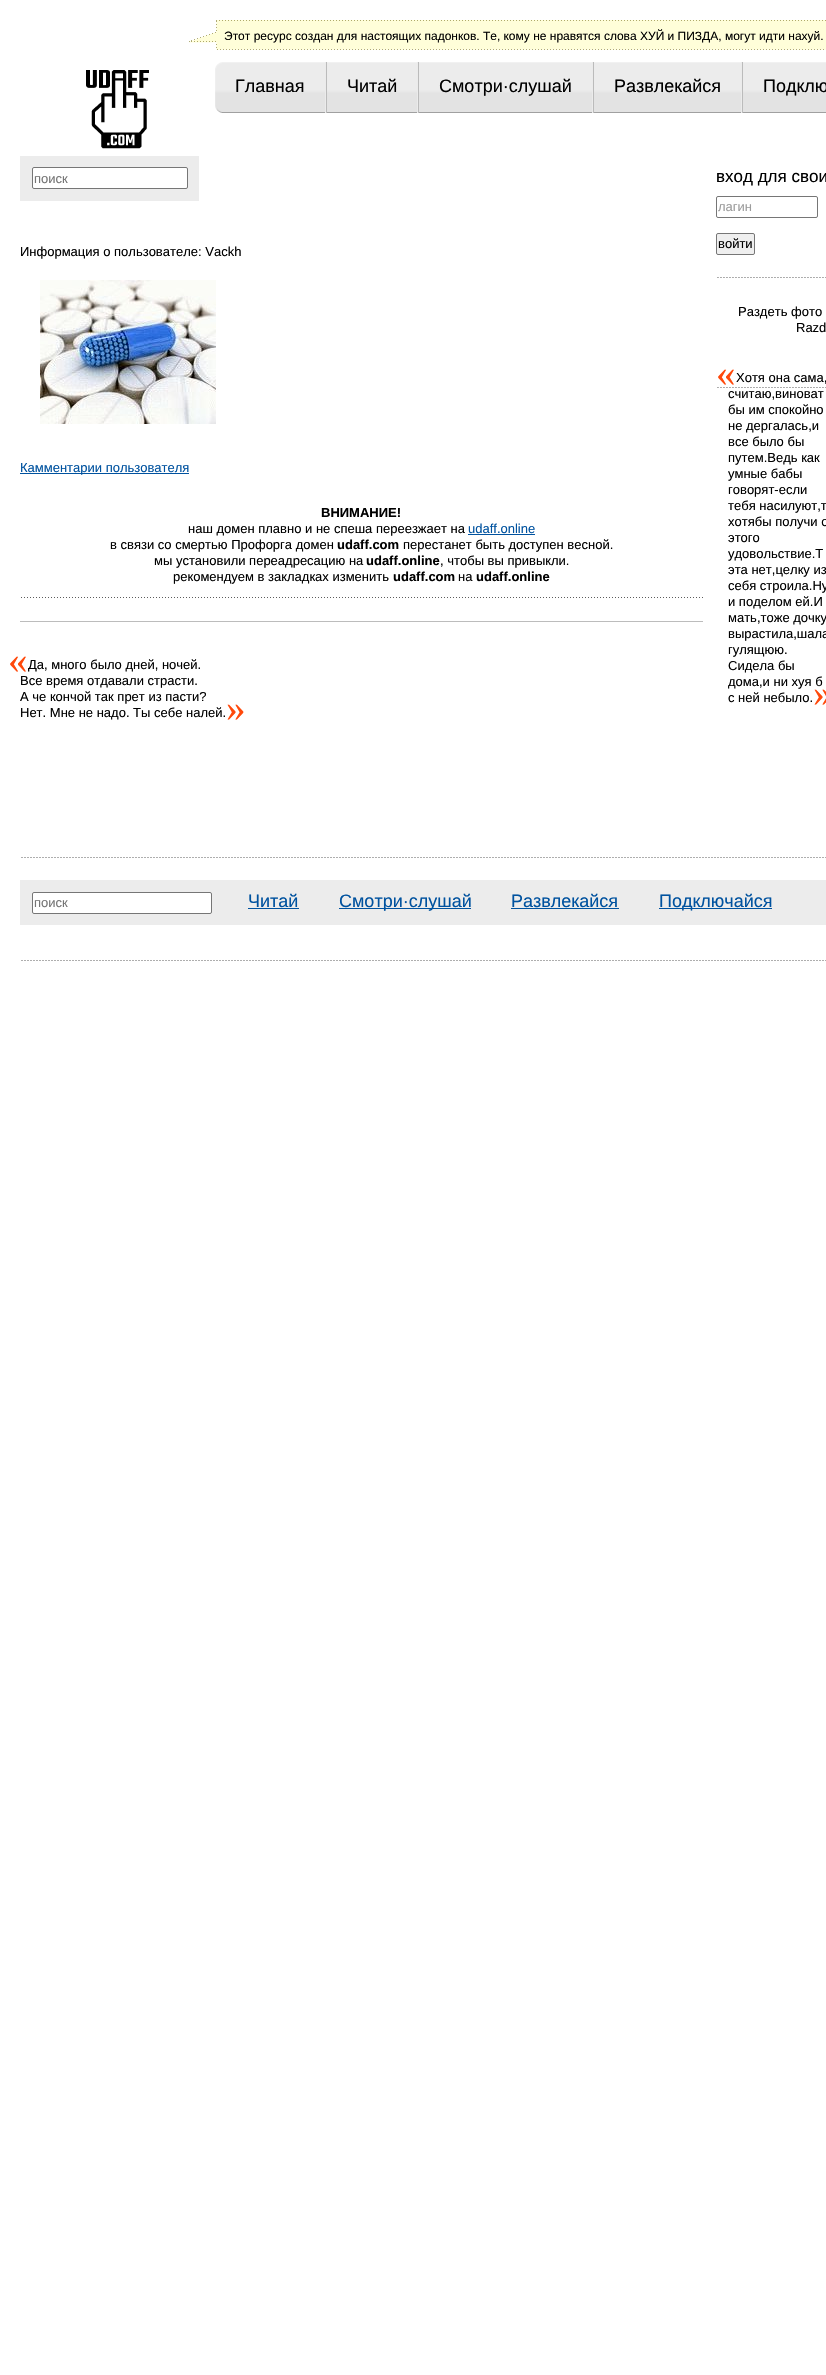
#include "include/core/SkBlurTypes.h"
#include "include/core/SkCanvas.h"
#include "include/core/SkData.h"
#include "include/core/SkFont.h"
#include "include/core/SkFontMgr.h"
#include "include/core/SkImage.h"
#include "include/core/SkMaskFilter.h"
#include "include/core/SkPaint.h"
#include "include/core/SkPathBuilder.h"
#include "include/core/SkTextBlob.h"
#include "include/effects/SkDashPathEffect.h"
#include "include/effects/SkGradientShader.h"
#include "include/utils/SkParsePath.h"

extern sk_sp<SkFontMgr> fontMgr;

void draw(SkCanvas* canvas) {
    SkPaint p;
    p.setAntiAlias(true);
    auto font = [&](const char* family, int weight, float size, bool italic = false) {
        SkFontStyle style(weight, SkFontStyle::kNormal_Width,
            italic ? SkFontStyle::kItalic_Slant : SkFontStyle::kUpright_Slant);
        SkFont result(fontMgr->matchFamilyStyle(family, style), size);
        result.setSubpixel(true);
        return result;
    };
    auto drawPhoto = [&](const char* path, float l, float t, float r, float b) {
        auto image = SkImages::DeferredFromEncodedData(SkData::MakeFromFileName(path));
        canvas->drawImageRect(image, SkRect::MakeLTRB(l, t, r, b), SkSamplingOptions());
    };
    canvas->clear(0xFFFFFFFF);
    drawPhoto("media/1.png", 189, 20, 826, 50);
    auto font1 = font("Liberation Sans", 400, 12);
    p.setColor(0xFF000000);
    canvas->drawString("Этот ресурс создан для настоящих падонков. Те, кому не нравятся слова ХУЙ и ПИЗДА, могут идти нахуй.", 224, 40, font1, p);
    drawPhoto("media/2.png", 86, 70, 149, 149);
    drawPhoto("media/3.png", 222, 62, 826, 113);
    drawPhoto("media/4.png", 215, 62, 222, 113);
    p.setColor(0xFFEBEBEB);
    canvas->drawRect(SkRect::MakeLTRB(325, 62, 326, 113), p);
    auto font2 = font("Liberation Sans", 400, 18);
    p.setColor(0xFF000000);
    canvas->drawString("Главная", 235, 92, font2, p);
    p.setColor(0xFFEBEBEB);
    canvas->drawRect(SkRect::MakeLTRB(417, 62, 418, 113), p);
    p.setColor(0xFFBBBBBB);
    canvas->drawRect(SkRect::MakeLTRB(326, 62, 327, 113), p);
    p.setColor(0xFF000000);
    canvas->drawString("Читай", 347, 92, font2, p);
    p.setColor(0xFFEBEBEB);
    canvas->drawRect(SkRect::MakeLTRB(592, 62, 593, 113), p);
    p.setColor(0xFFBBBBBB);
    canvas->drawRect(SkRect::MakeLTRB(418, 62, 419, 113), p);
    p.setColor(0xFF000000);
    canvas->drawString("Смотри·слушай", 439, 92, font2, p);
    p.setColor(0xFFEBEBEB);
    canvas->drawRect(SkRect::MakeLTRB(741, 62, 742, 113), p);
    p.setColor(0xFFBBBBBB);
    canvas->drawRect(SkRect::MakeLTRB(593, 62, 594, 113), p);
    p.setColor(0xFF000000);
    canvas->drawString("Развлекайся", 614, 92, font2, p);
    p.setColor(0xFFBBBBBB);
    canvas->drawRect(SkRect::MakeLTRB(742, 62, 743, 113), p);
    p.setColor(0xFF000000);
    canvas->drawString("Подклю", 763, 92, font2, p);
    p.setColor(0xFFECECEC);
    canvas->drawRect(SkRect::MakeLTRB(20, 156, 199, 201), p);
    p.setColor(0xFFFFFFFF);
    canvas->drawRoundRect(SkRect::MakeLTRB(32.5f, 167.5f, 187.5f, 188.5f), 1.5f, 1.5f, p);
    p.setStyle(SkPaint::kStroke_Style);
    p.setStrokeWidth(1);
    p.setColor(0xFF767676);
    canvas->drawRoundRect(SkRect::MakeLTRB(32.5f, 167.5f, 187.5f, 188.5f), 1.5f, 1.5f, p);
    auto font3 = font("Liberation Sans", 400, 13);
    p.setStyle(SkPaint::kFill_Style);
    p.setColor(0xFF757575);
    canvas->drawString("поиск", 34, 183, font3, p);
    p.setColor(0xFF000000);
    canvas->drawString("Информация о пользователе: Vackh", 20, 256, font3, p);
    drawPhoto("media/5.png", 40, 280, 216, 424);
    p.setColor(0xFF00529F);
    canvas->drawRect(SkRect::MakeLTRB(20, 473, 189, 474), p);
    canvas->drawString("Камментарии пользователя", 20, 472, font3, p);
    drawPhoto("media/6.png", 21, 597, 703, 598);
    auto font4 = font("Liberation Sans", 700, 13);
    p.setColor(0xFF000000);
    canvas->drawString("ВНИМАНИЕ!", 321, 517, font4, p);
    canvas->drawString("наш домен плавно и не спеша переезжает на", 188, 533, font3, p);
    p.setColor(0xFF00529F);
    canvas->drawString("udaff.online", 468, 533, font3, p);
    canvas->drawRect(SkRect::MakeLTRB(468, 534, 535, 535), p);
    p.setColor(0xFF000000);
    canvas->drawString("в связи со смертью Профорга домен", 110, 549, font3, p);
    canvas->drawString("udaff.com", 337, 549, font4, p);
    canvas->drawString("перестанет быть доступен весной.", 403, 549, font3, p);
    canvas->drawString("мы установили переадресацию на", 154, 565, font3, p);
    canvas->drawString("udaff.online", 366, 565, font4, p);
    canvas->drawString(", чтобы вы привыкли.", 440, 565, font3, p);
    canvas->drawString("рекомендуем в закладках изменить", 173, 581, font3, p);
    canvas->drawString("udaff.com", 393, 581, font4, p);
    canvas->drawString("на", 458, 581, font3, p);
    canvas->drawString("udaff.online", 476, 581, font4, p);
    p.setColor(0xFFBCBCBC);
    canvas->drawRect(SkRect::MakeLTRB(20, 621, 703, 622), p);
    auto font5 = font("Liberation Serif", 400, 39);
    p.setColor(0xFFFF490B);
    canvas->drawString("«", 8, 673, font5, p);
    p.setColor(0xFF000000);
    {
        const struct { const char* s; float x, y; } items[] = {
            {"Да, много было дней, ночей.", 28, 669},
            {"Все время отдавали страсти.", 20, 685},
            {"А че кончой так прет из пасти?", 20, 701},
            {"Нет. Мне не надо. Ты себе налей.", 20, 717},
        };
        for (auto [s, x, y] : items) {
            canvas->drawString(s, x, y, font3, p);
        }
    }
    p.setColor(0xFFFF490B);
    canvas->drawString("»", 226, 721, font5, p);
    drawPhoto("media/7.png", 717, 277, 826, 278);
    auto font6 = font("Liberation Sans", 400, 17);
    p.setColor(0xFF000000);
    canvas->drawString("вход для свои", 716, 182, font6, p);
    p.setStyle(SkPaint::kStroke_Style);
    p.setColor(0xFF767676);
    canvas->drawRoundRect(SkRect::MakeLTRB(716.5f, 196.5f, 817.5f, 217.5f), 1.5f, 1.5f, p);
    p.setStyle(SkPaint::kFill_Style);
    p.setColor(0xFF9C9C9C);
    canvas->drawString("лагин", 718, 211, font3, p);
    p.setColor(0xFFEFEFEF);
    canvas->drawRoundRect(SkRect::MakeLTRB(716.5f, 233.5f, 754.5f, 254.5f), 1.5f, 1.5f, p);
    p.setStyle(SkPaint::kStroke_Style);
    p.setColor(0xFF767676);
    canvas->drawRoundRect(SkRect::MakeLTRB(716.5f, 233.5f, 754.5f, 254.5f), 1.5f, 1.5f, p);
    p.setStyle(SkPaint::kFill_Style);
    p.setColor(0xFF000000);
    {
        const struct { const char* s; float x, y; } items[] = {
            {"войти", 718, 248},
            {"Раздеть фото", 738, 316},
            {"Razd", 796, 332},
        };
        for (auto [s, x, y] : items) {
            canvas->drawString(s, x, y, font3, p);
        }
    }
    p.setColor(0xFFFF490B);
    canvas->drawString("«", 716, 386, font5, p);
    p.setColor(0xFF000000);
    {
        const struct { const char* s; float x, y; } items[] = {
            {"Хотя она сама,", 736, 382},
            {"считаю,виноват", 728, 398},
            {"бы им спокойно", 728, 414},
            {"не дергалась,и", 728, 430},
            {"все было бы", 728, 446},
            {"путем.Ведь как", 728, 462},
            {"умные бабы", 728, 478},
            {"говорят-если", 728, 494},
            {"тебя насилуют,т", 728, 510},
            {"хотябы получи о", 728, 526},
            {"этого", 728, 542},
            {"удовольствие.Т", 728, 558},
            {"эта нет,целку из", 728, 574},
            {"себя строила.Ну", 728, 590},
            {"и поделом ей.И", 728, 606},
            {"мать,тоже дочку", 728, 622},
            {"вырастила,шала", 728, 638},
            {"гулящюю.", 728, 654},
            {"Сидела бы", 728, 670},
            {"дома,и ни хуя б", 728, 686},
            {"с ней небыло.", 728, 702},
        };
        for (auto [s, x, y] : items) {
            canvas->drawString(s, x, y, font3, p);
        }
    }
    p.setColor(0xFFFF490B);
    canvas->drawString("»", 813, 706, font5, p);
    drawPhoto("media/7.png", 717, 387, 826, 388);
    drawPhoto("media/8.png", 21, 857, 826, 858);
    drawPhoto("media/8.png", 21, 960, 826, 961);
    p.setColor(0xFFECECEC);
    canvas->drawRect(SkRect::MakeLTRB(20, 880, 826, 925), p);
    p.setColor(0xFFFFFFFF);
    canvas->drawRoundRect(SkRect::MakeLTRB(32.5f, 892.5f, 211.5f, 913.5f), 1.5f, 1.5f, p);
    p.setStyle(SkPaint::kStroke_Style);
    p.setColor(0xFF767676);
    canvas->drawRoundRect(SkRect::MakeLTRB(32.5f, 892.5f, 211.5f, 913.5f), 1.5f, 1.5f, p);
    p.setStyle(SkPaint::kFill_Style);
    p.setColor(0xFF757575);
    canvas->drawString("поиск", 34, 907, font3, p);
    p.setColor(0xFF00529F);
    canvas->drawString("Читай", 248, 907, font2, p);
    canvas->drawRect(SkRect::MakeLTRB(248, 908, 299, 909), p);
    canvas->drawRect(SkRect::MakeLTRB(339, 908, 471, 909), p);
    canvas->drawString("Смотри·слушай", 339, 907, font2, p);
    canvas->drawString("Развлекайся", 511, 907, font2, p);
    canvas->drawRect(SkRect::MakeLTRB(511, 908, 619, 909), p);
    canvas->drawRect(SkRect::MakeLTRB(659, 908, 772, 909), p);
    canvas->drawString("Подключайся", 659, 907, font2, p);
}
